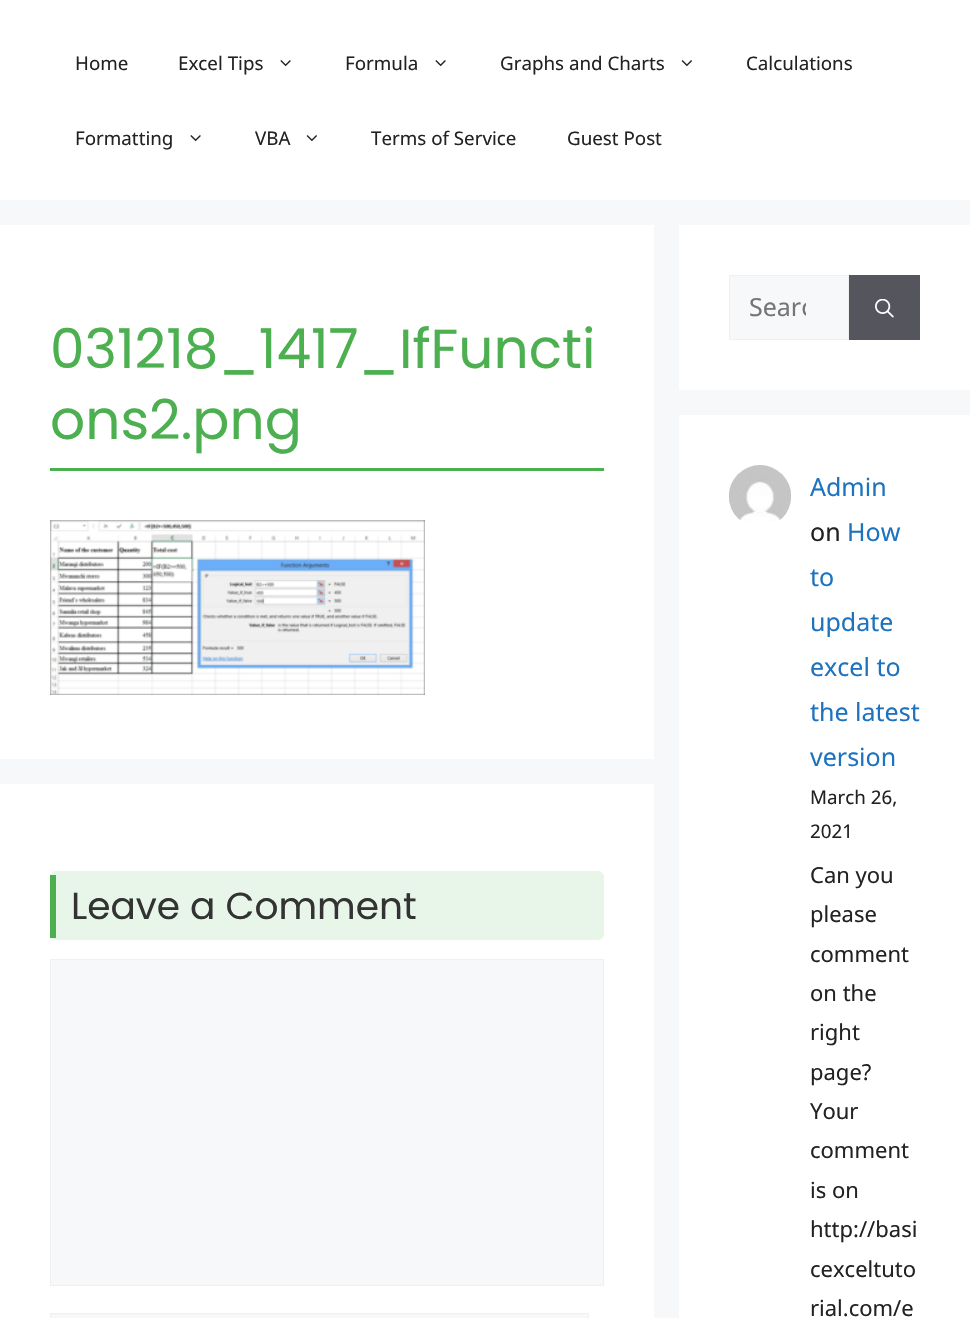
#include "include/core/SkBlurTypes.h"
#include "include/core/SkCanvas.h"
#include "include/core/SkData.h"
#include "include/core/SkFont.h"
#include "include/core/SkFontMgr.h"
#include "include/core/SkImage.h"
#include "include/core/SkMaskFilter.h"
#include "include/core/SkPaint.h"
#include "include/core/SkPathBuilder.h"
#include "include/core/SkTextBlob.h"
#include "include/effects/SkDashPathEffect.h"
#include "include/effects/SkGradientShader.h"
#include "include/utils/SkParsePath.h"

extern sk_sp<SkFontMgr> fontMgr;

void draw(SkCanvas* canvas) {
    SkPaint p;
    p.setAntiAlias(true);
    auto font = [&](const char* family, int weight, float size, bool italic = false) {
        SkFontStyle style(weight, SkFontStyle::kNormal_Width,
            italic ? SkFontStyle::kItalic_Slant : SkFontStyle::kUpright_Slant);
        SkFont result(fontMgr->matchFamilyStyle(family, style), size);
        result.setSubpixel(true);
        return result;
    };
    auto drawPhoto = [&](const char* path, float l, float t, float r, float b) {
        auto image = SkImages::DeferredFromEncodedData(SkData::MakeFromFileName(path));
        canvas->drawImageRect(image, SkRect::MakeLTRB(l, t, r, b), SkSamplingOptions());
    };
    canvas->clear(0xFFF7F8F9);
    p.setColor(0xFFFFFFFF);
    canvas->drawRect(SkRect::MakeLTRB(0, 0, 970, 200), p);
    auto font1 = font("Noto Sans", 400, 18.75f);
    p.setColor(0xFF222222);
    canvas->drawString("Home", 75, 70, font1, p);
    canvas->drawString("Excel Tips", 178, 70, font1, p);
    drawPhoto("media/1.png", 280, 60, 291, 67);
    canvas->drawString("Formula", 345, 70, font1, p);
    drawPhoto("media/1.png", 435, 60, 446, 67);
    canvas->drawString("Graphs and Charts", 500, 70, font1, p);
    drawPhoto("media/2.png", 681, 60, 692, 67);
    canvas->drawString("Calculations", 746, 70, font1, p);
    canvas->drawString("Formatting", 75, 145, font1, p);
    drawPhoto("media/1.png", 190, 135, 201, 142);
    canvas->drawString("VBA", 255, 145, font1, p);
    drawPhoto("media/2.png", 306, 135, 317, 142);
    canvas->drawString("Terms of Service", 371, 145, font1, p);
    canvas->drawString("Guest Post", 567, 145, font1, p);
    p.setColor(0xFFFFFFFF);
    canvas->drawRect(SkRect::MakeLTRB(0, 225, 654, 759), p);
    p.setColor(0xFF4CAF50);
    canvas->drawRect(SkRect::MakeLTRB(50, 468, 604, 471), p);
    auto font2 = font("Poppins", 400, 55);
    canvas->drawString("031218_1417_IfFuncti", 50, 368, font2, p);
    canvas->drawString("ons2.png", 50, 439, font2, p);
    drawPhoto("media/3.png", 50, 520, 425, 695);
    p.setColor(0xFFFFFFFF);
    canvas->drawRect(SkRect::MakeLTRB(0, 784, 654, 1318), p);
    p.setColor(0xFFE8F5E9);
    canvas->drawRoundRect(SkRect::MakeLTRB(50, 871, 604, 940), 6, 6, p);
    p.setColor(0xFF4CAF50);
    canvas->drawRect(SkRect::MakeLTRB(50, 875, 56, 938), p);
    auto font3 = font("Poppins", 400, 37.5f);
    p.setColor(0xFF333333);
    canvas->drawString("Leave a Comment", 71, 919, font3, p);
    p.setColor(0xFFF7F8F9);
    canvas->drawRect(SkRect::MakeLTRB(50.5f, 959.5f, 603.5f, 1285.5f), p);
    p.setStyle(SkPaint::kStroke_Style);
    p.setStrokeWidth(1);
    p.setColor(0xFFF0F0F0);
    canvas->drawRect(SkRect::MakeLTRB(50.5f, 959.5f, 603.5f, 1285.5f), p);
    p.setStyle(SkPaint::kFill_Style);
    p.setColor(0xFFF7F8F9);
    canvas->drawRect(SkRect::MakeLTRB(50.5f, 1313.5f, 588.5f, 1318.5f), p);
    p.setStyle(SkPaint::kStroke_Style);
    p.setColor(0xFFF0F0F0);
    canvas->drawRect(SkRect::MakeLTRB(50.5f, 1313.5f, 588.5f, 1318.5f), p);
    p.setStyle(SkPaint::kFill_Style);
    p.setColor(0xFFFFFFFF);
    canvas->drawRect(SkRect::MakeLTRB(679, 225, 970, 390), p);
    p.setColor(0xFFF7F8F9);
    canvas->drawRect(SkRect::MakeLTRB(729.5f, 275.5f, 848.5f, 339.5f), p);
    p.setStyle(SkPaint::kStroke_Style);
    p.setColor(0xFFF0F0F0);
    canvas->drawRect(SkRect::MakeLTRB(729.5f, 275.5f, 848.5f, 339.5f), p);
    canvas->save();
    canvas->clipRect(SkRect::MakeLTRB(749, 290, 806, 324));
    auto font4 = font("Noto Sans", 400, 25);
    p.setStyle(SkPaint::kFill_Style);
    p.setColor(0xFF757575);
    canvas->drawString("Searc", 749, 316, font4, p);
    canvas->restore();
    p.setColor(0xFF55555E);
    canvas->drawRect(SkRect::MakeLTRB(849, 275, 920, 340), p);
    drawPhoto("media/4.png", 875, 299, 894, 318);
    p.setColor(0xFFFFFFFF);
    canvas->drawRect(SkRect::MakeLTRB(679, 415, 970, 1318), p);
    drawPhoto("media/5.png", 728, 465, 792, 521);
    p.setColor(0xFF1E73BE);
    canvas->drawString("Admin", 810, 496, font4, p);
    p.setColor(0xFF222222);
    canvas->drawString("on", 810, 541, font4, p);
    p.setColor(0xFF1E73BE);
    {
        const struct { const char* s; float x, y; } items[] = {
            {"How", 847, 541},
            {"to", 810, 586},
            {"update", 810, 631},
            {"excel to", 810, 676},
            {"the latest", 810, 721},
            {"version", 810, 766},
        };
        for (auto [s, x, y] : items) {
            canvas->drawString(s, x, y, font4, p);
        }
    }
    p.setColor(0xFF222222);
    canvas->drawString("March 26,", 810, 804, font1, p);
    canvas->drawString("2021", 810, 838, font1, p);
    auto font5 = font("Noto Sans", 400, 22);
    {
        const struct { const char* s; float x, y; } items[] = {
            {"Can you", 810, 883},
            {"please", 810, 922},
            {"comment", 810, 962},
            {"on the", 810, 1001},
            {"right", 810, 1040},
            {"page?", 810, 1080},
            {"Your", 810, 1119},
            {"comment", 810, 1158},
            {"is on", 810, 1198},
            {"http://basi", 810, 1237},
            {"cexceltuto", 810, 1277},
            {"rial.com/e", 810, 1316},
        };
        for (auto [s, x, y] : items) {
            canvas->drawString(s, x, y, font5, p);
        }
    }
}
